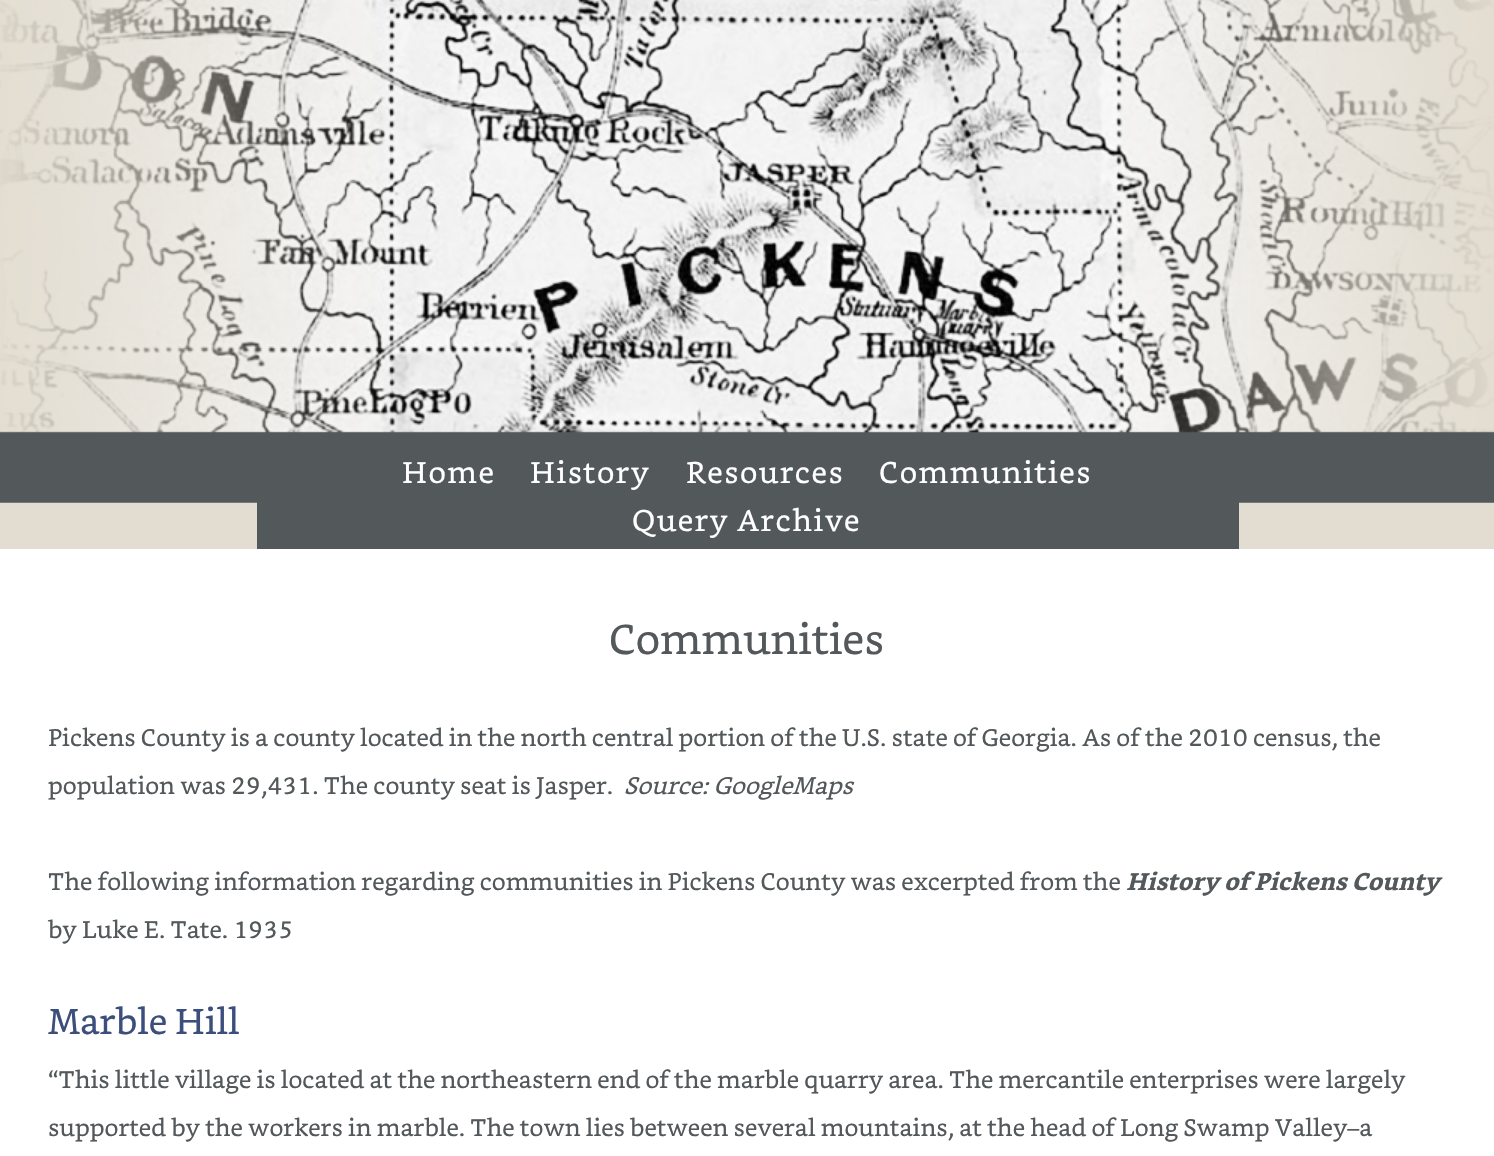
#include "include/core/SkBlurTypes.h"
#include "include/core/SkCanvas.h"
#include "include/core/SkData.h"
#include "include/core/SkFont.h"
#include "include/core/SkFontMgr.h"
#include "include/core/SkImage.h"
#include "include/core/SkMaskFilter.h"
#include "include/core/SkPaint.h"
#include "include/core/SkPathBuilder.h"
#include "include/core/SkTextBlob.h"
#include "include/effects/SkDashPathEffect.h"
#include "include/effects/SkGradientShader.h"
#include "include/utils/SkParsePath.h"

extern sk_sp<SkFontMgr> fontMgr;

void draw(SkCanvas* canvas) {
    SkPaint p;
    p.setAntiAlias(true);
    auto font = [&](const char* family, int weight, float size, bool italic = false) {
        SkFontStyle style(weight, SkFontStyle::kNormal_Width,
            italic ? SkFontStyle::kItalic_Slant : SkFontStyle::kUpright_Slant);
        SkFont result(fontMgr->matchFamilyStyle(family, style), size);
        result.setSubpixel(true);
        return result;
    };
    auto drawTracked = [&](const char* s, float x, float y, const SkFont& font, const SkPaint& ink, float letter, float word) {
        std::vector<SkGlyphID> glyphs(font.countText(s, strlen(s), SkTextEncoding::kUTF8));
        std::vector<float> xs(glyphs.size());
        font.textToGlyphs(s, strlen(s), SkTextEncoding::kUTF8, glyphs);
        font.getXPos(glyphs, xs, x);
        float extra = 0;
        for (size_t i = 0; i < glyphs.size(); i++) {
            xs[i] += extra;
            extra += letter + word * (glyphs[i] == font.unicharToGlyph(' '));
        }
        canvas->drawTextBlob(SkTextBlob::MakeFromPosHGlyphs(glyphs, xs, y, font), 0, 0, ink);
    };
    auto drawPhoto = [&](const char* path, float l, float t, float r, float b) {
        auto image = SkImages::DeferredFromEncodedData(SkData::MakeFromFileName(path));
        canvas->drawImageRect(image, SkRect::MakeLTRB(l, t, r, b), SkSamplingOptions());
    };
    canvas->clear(0xFFE3DDD1);
    drawPhoto("media/1.png", 0, 502, 1494, 503);
    drawPhoto("media/2.png", 0, 0, 1494, 503);
    p.setColor(0xFF53585B);
    canvas->drawRect(SkRect::MakeLTRB(257, 502, 1239, 549), p);
    auto font1 = font("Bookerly", 400, 30);
    p.setColor(0xFFFFFFFF);
    {
        const struct { const char* s; float x, y; } items[] = {
            {"Home", 402, 483},
            {"History", 530, 483},
            {"Resources", 686, 483},
            {"Communities", 879, 483},
            {"Query Archive", 632, 531},
        };
        for (auto [s, x, y] : items) {
            drawTracked(s, x, y, font1, p, 1.5f, 0);
        }
    }
    canvas->drawRect(SkRect::MakeLTRB(0, 549, 1494, 1156), p);
    auto font2 = font("Bookerly", 400, 42);
    p.setColor(0xFF53585B);
    canvas->drawString("Communities", 609, 654, font2, p);
    auto font3 = font("Bookerly", 400, 24);
    canvas->drawString("Pickens County is a county located in the north central portion of the U.S. state of Georgia. As of the 2010 census, the", 48, 746, font3, p);
    canvas->drawString("population was 29,431. The county seat is Jasper.", 48, 794, font3, p);
    auto font4 = font("Bookerly", 400, 24, true);
    canvas->drawString("Source: GoogleMaps", 624, 794, font4, p);
    canvas->drawString("The following information regarding communities in Pickens County was excerpted from the", 48, 890, font3, p);
    auto font5 = font("Bookerly", 700, 24, true);
    canvas->drawString("History of Pickens County", 1126, 890, font5, p);
    canvas->drawString("by Luke E. Tate. 1935", 48, 938, font3, p);
    auto font6 = font("Bookerly", 400, 36);
    p.setColor(0xFF3B4E7C);
    canvas->drawString("Marble Hill", 48, 1034, font6, p);
    p.setColor(0xFF53585B);
    canvas->drawString("“This little village is located at the northeastern end of the marble quarry area. The mercantile enterprises were largely", 48, 1088, font3, p);
    canvas->drawString("supported by the workers in marble. The town lies between several mountains, at the head of Long Swamp Valley–a", 48, 1136, font3, p);
}
